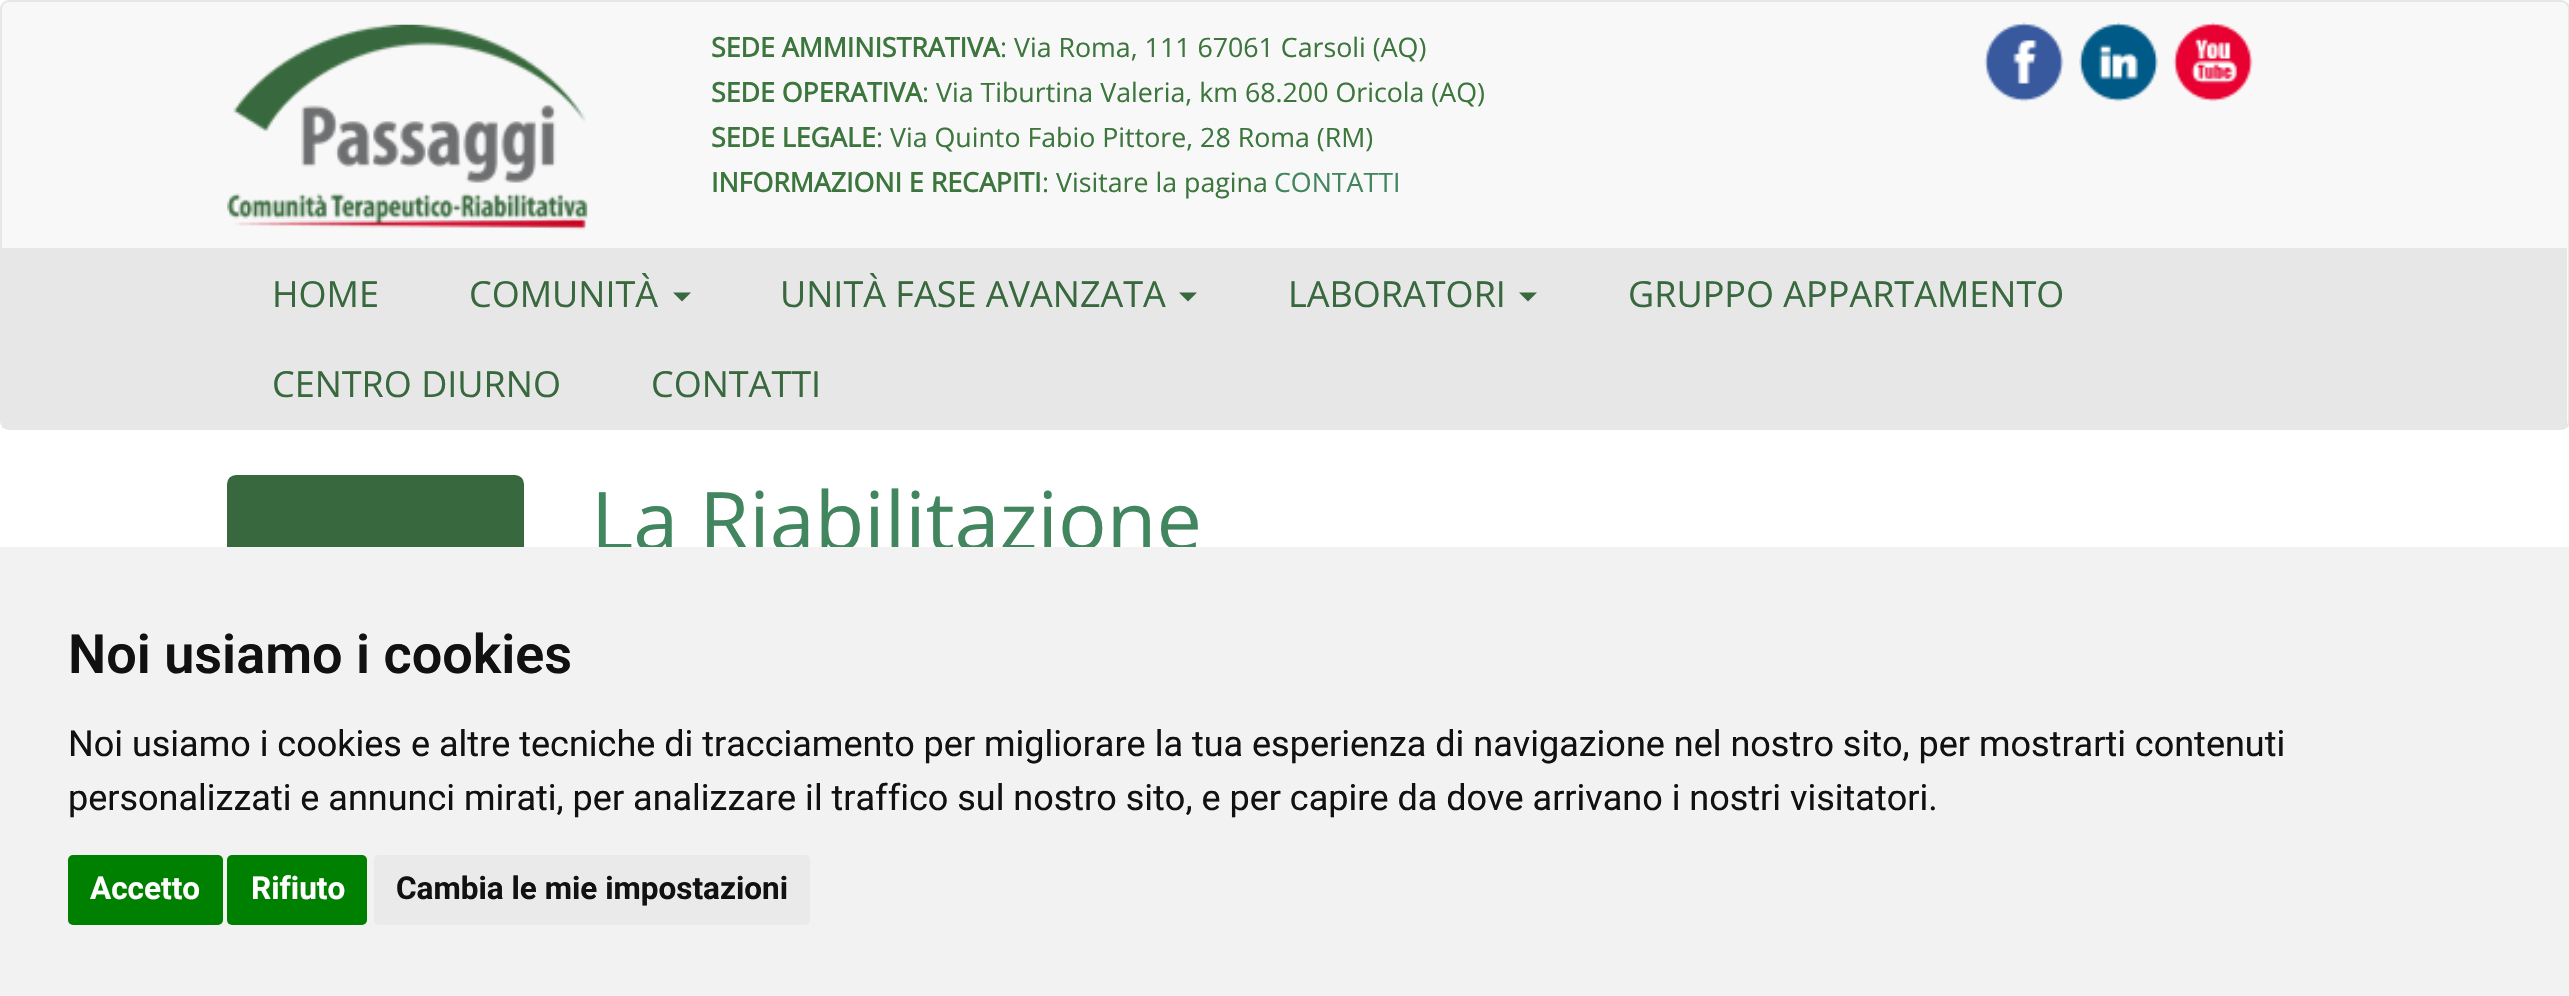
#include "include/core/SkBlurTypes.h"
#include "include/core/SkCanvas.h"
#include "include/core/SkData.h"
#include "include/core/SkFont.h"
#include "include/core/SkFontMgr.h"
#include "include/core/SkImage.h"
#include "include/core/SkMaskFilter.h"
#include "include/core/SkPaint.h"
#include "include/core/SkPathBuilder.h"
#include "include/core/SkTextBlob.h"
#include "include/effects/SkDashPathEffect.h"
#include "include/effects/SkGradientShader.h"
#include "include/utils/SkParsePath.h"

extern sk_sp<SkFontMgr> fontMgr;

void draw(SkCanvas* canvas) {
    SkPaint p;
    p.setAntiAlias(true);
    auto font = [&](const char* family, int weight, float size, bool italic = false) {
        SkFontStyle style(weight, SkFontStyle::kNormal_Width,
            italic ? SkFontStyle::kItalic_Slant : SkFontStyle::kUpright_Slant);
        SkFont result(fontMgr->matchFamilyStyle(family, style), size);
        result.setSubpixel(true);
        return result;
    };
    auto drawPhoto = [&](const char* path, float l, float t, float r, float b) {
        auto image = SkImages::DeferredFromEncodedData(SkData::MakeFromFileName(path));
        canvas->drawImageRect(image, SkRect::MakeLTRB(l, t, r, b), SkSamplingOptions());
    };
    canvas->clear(0xFFFFFFFF);
    p.setColor(0xFFF8F8F8);
    canvas->drawRoundRect(SkRect::MakeLTRB(1, 1, 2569, 429), 8, 8, p);
    p.setStyle(SkPaint::kStroke_Style);
    p.setStrokeWidth(2);
    p.setColor(0xFFE7E7E7);
    canvas->drawRoundRect(SkRect::MakeLTRB(1, 1, 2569, 429), 8, 8, p);
    drawPhoto("media/1.png", 227, 24, 588, 230);
    auto font1 = font("Open Sans", 700, 26.75f);
    p.setStyle(SkPaint::kFill_Style);
    p.setColor(0xFF3C763D);
    canvas->drawString("SEDE AMMINISTRATIVA", 711, 57, font1, p);
    auto font2 = font("Open Sans", 400, 26.75f);
    canvas->drawString(": Via Roma, 111 67061 Carsoli (AQ)", 1000, 57, font2, p);
    canvas->drawString("SEDE OPERATIVA", 711, 102, font1, p);
    canvas->drawString(": Via Tiburtina Valeria, km 68.200 Oricola (AQ)", 922, 102, font2, p);
    canvas->drawString("SEDE LEGALE", 711, 147, font1, p);
    canvas->drawString(": Via Quinto Fabio Pittore, 28 Roma (RM)", 876, 147, font2, p);
    canvas->drawString("INFORMAZIONI E RECAPITI", 711, 192, font1, p);
    canvas->drawString(": Visitare la pagina", 1042, 192, font2, p);
    p.setColor(0xFF41865F);
    canvas->drawString("CONTATTI", 1274, 192, font2, p);
    drawPhoto("media/2.png", 1984, 22, 2064, 102);
    drawPhoto("media/3.png", 2079, 22, 2158, 102);
    drawPhoto("media/4.png", 2173, 22, 2253, 102);
    p.setColor(0xFFE7E7E7);
    canvas->drawRect(SkRect::MakeLTRB(2, 248, 2567, 428), p);
    auto font3 = font("Open Sans", 400, 36);
    p.setColor(0xFF38683D);
    canvas->drawString("HOME", 272, 307, font3, p);
    canvas->drawString("COMUNITÀ", 469, 307, font3, p);
    canvas->drawPath(SkPathBuilder().moveTo(673, 292.5f).lineTo(691, 292.5f).lineTo(682, 301.5f).close().detach(), p);
    canvas->drawString("UNITÀ FASE AVANZATA", 780, 307, font3, p);
    canvas->drawPath(SkPathBuilder().moveTo(1179, 292.5f).lineTo(1197, 292.5f).lineTo(1188, 301.5f).close().detach(), p);
    canvas->drawString("LABORATORI", 1288, 307, font3, p);
    canvas->drawPath(SkPathBuilder().moveTo(1519, 292.5f).lineTo(1537, 292.5f).lineTo(1528, 301.5f).close().detach(), p);
    {
        const struct { const char* s; float x, y; } items[] = {
            {"GRUPPO APPARTAMENTO", 1628, 307},
            {"CENTRO DIURNO", 272, 397},
            {"CONTATTI", 651, 397},
        };
        for (auto [s, x, y] : items) {
            canvas->drawString(s, x, y, font3, p);
        }
    }
    canvas->drawPath(SkPathBuilder().moveTo(236, 476).lineTo(515, 476).cubicTo(519.5f, 476, 523, 479.5f, 523, 484).lineTo(523, 568).lineTo(228, 568).lineTo(228, 484).cubicTo(228, 479.5f, 231.5f, 476, 236, 476).close().detach(), p);
    p.setStyle(SkPaint::kStroke_Style);
    canvas->drawPath(SkPathBuilder().moveTo(236, 476).lineTo(515, 476).cubicTo(519.5f, 476, 523, 479.5f, 523, 484).lineTo(523, 568).lineTo(228, 568).lineTo(228, 484).cubicTo(228, 479.5f, 231.5f, 476, 236, 476).close().detach(), p);
    auto font4 = font("Open Sans", 400, 81);
    p.setStyle(SkPaint::kFill_Style);
    p.setColor(0xFF41865F);
    canvas->drawString("La Riabilitazione", 591, 550, font4, p);
    p.setColor(0xFFF2F2F2);
    canvas->drawRect(SkRect::MakeLTRB(0, 547, 2569, 996), p);
    auto font5 = font("Roboto", 600, 54);
    p.setColor(0xFF111111);
    canvas->drawString("Noi usiamo i cookies", 68, 673, font5, p);
    auto font6 = font("Roboto", 400, 36);
    canvas->drawString("Noi usiamo i cookies e altre tecniche di tracciamento per migliorare la tua esperienza di navigazione nel nostro sito, per mostrarti contenuti", 68, 756, font6, p);
    canvas->drawString("personalizzati e annunci mirati, per analizzare il traffico sul nostro sito, e per capire da dove arrivano i nostri visitatori.", 68, 810, font6, p);
    p.setColor(0xFF008000);
    canvas->drawRoundRect(SkRect::MakeLTRB(68, 855, 223, 925), 5, 5, p);
    auto font7 = font("Roboto", 700, 31.5f);
    p.setColor(0xFFFFFFFF);
    canvas->drawString("Accetto", 90, 899, font7, p);
    p.setColor(0xFF008000);
    canvas->drawRoundRect(SkRect::MakeLTRB(227, 855, 367, 925), 5, 5, p);
    p.setColor(0xFFFFFFFF);
    canvas->drawString("Rifiuto", 251, 899, font7, p);
    p.setColor(0xFFEAEAEA);
    canvas->drawRoundRect(SkRect::MakeLTRB(374, 855, 810, 925), 5, 5, p);
    p.setColor(0xFF111111);
    canvas->drawString("Cambia le mie impostazioni", 396, 899, font7, p);
}
